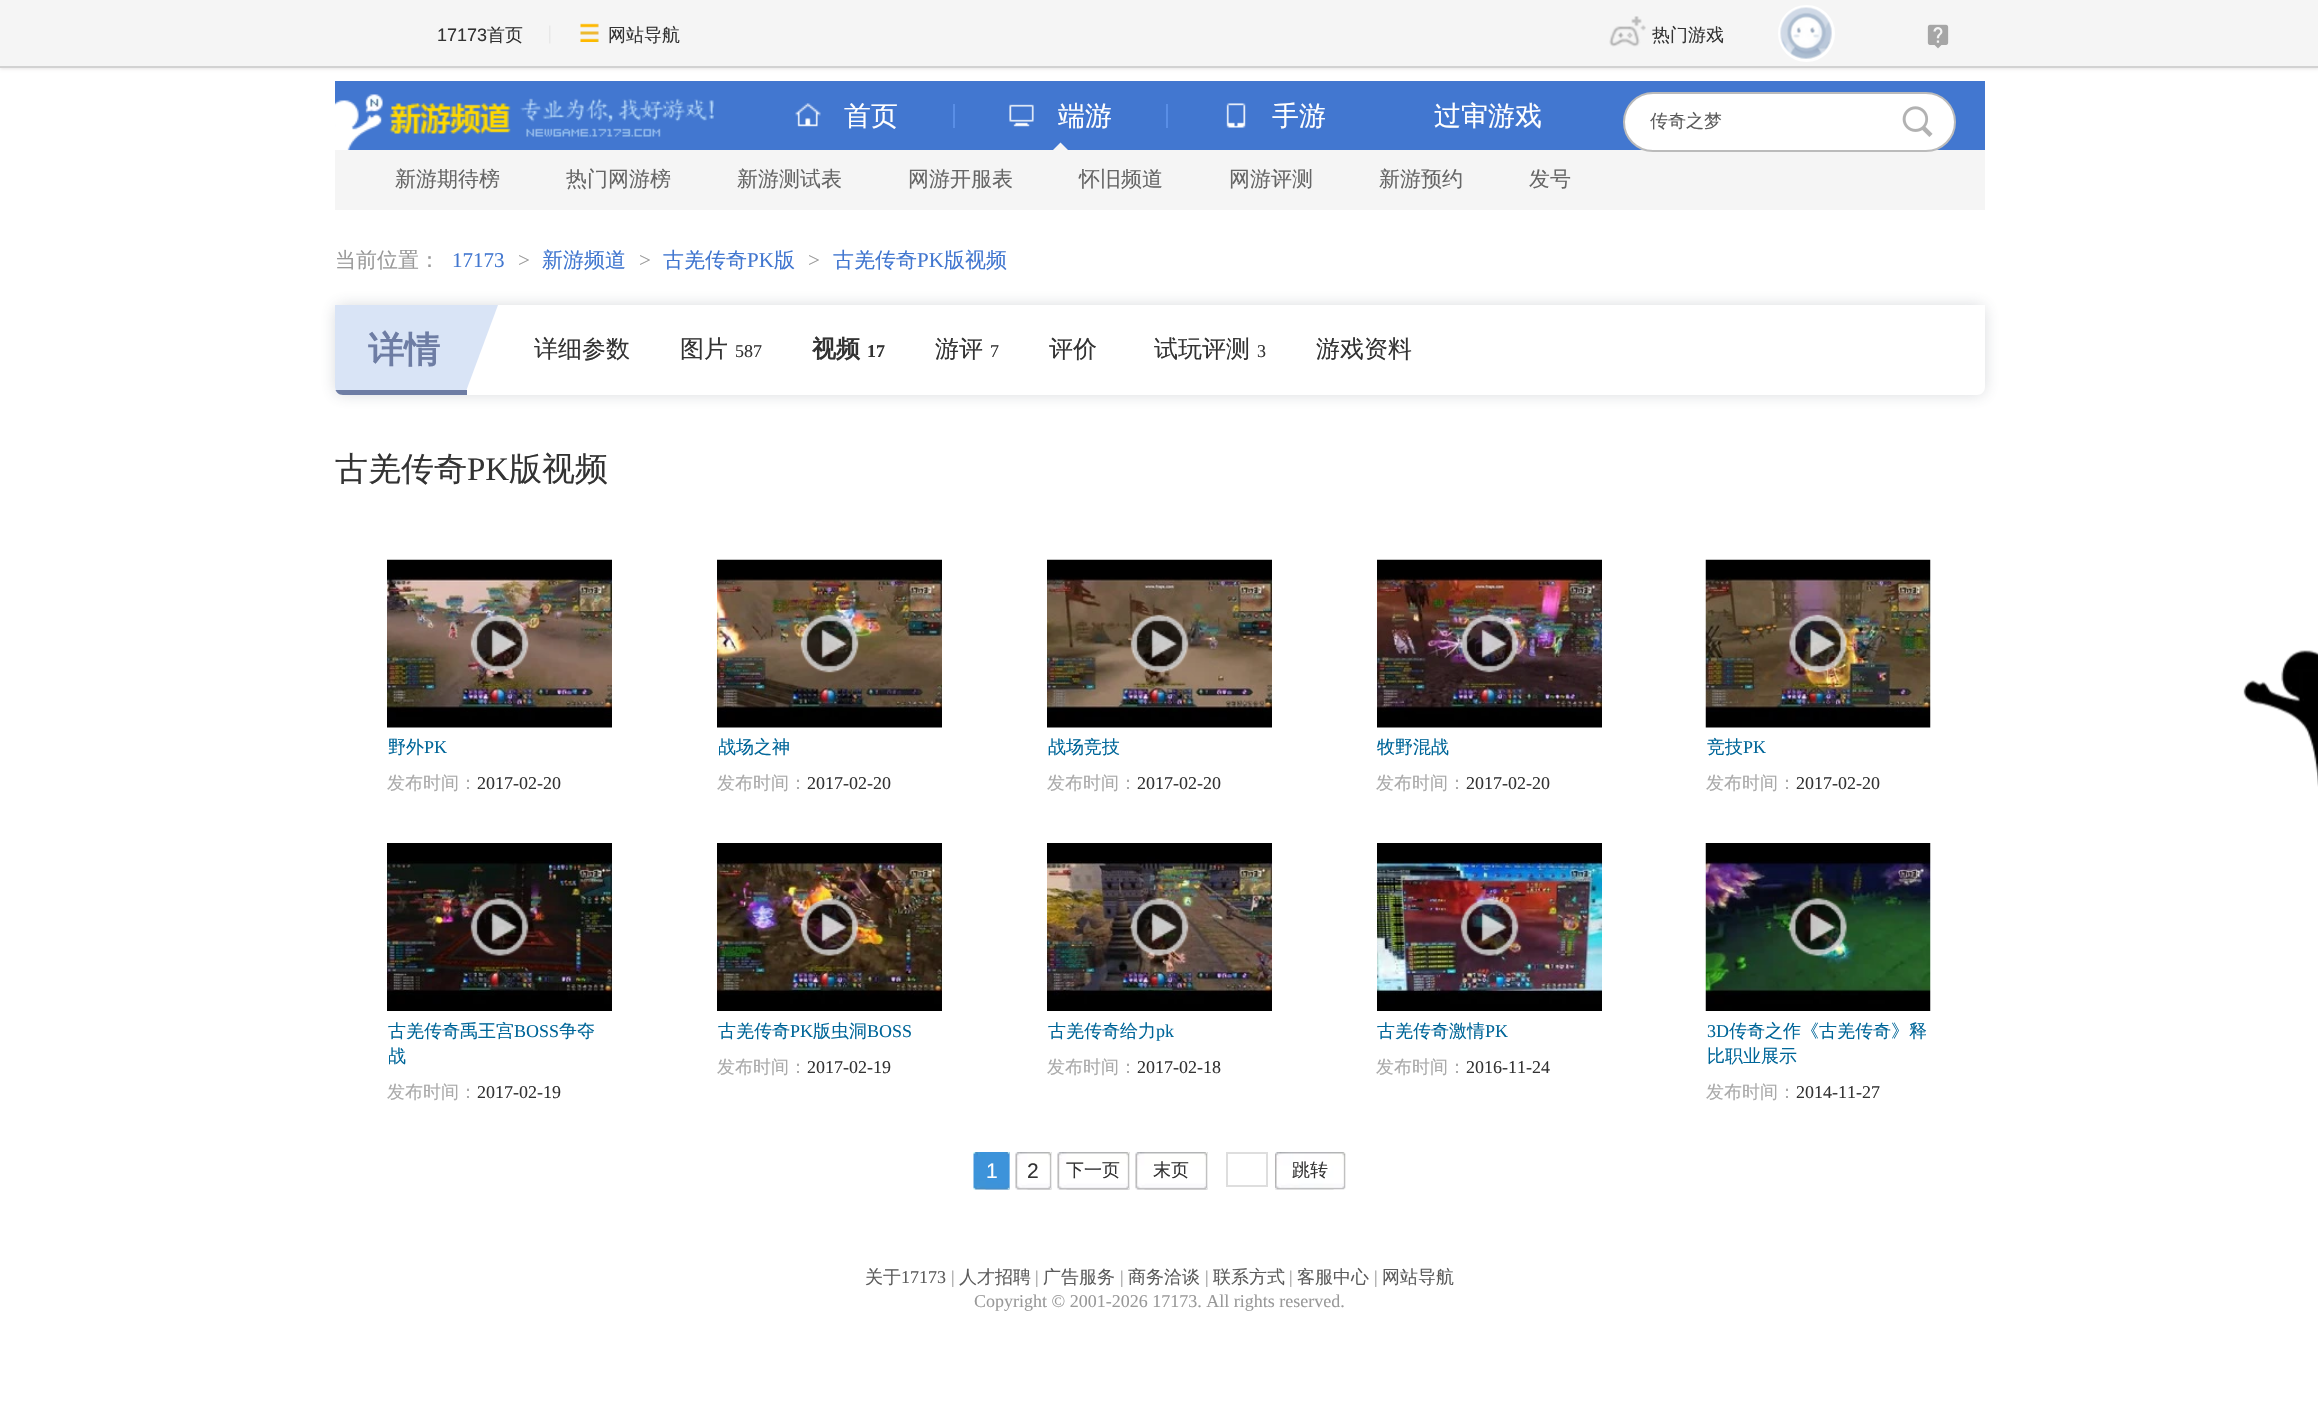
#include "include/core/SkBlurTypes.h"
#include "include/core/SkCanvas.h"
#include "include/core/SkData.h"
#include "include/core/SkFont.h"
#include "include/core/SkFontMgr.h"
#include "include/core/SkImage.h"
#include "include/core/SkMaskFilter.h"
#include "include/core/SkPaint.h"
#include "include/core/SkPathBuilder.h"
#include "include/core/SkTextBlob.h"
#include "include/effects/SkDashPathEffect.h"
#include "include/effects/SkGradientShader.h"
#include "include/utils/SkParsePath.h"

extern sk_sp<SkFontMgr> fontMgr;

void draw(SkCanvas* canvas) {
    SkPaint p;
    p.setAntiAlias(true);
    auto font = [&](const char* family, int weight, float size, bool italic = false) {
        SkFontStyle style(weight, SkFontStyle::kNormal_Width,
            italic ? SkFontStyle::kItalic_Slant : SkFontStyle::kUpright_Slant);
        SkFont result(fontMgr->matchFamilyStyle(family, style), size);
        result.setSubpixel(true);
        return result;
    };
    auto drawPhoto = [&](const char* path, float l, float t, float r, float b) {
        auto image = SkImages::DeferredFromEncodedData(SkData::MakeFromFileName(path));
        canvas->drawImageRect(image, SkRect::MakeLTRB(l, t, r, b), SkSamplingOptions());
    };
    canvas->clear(0xFFFFFFFF);
    p.setColor(0xFFE8E6E6);
    p.setMaskFilter(SkMaskFilter::MakeBlur(kNormal_SkBlurStyle, 1.5f));
    canvas->drawRect(SkRect::MakeLTRB(0, 2, 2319, 69), p);
    p.setMaskFilter(nullptr);
    p.setColor(0xFFF5F5F5);
    canvas->drawRect(SkRect::MakeLTRB(0, 0, 2318, 66), p);
    p.setColor(0xFFD2D2D2);
    canvas->drawRect(SkRect::MakeLTRB(0, 66, 2318, 68), p);
    auto font1 = font("Liberation Sans", 400, 18);
    p.setColor(0xFF333333);
    canvas->drawString("17173", 437, 41, font1, p);
    auto font2 = font("WenQuanYi Zen Hei", 500, 18);
    canvas->drawString("首页", 487, 41, font2, p);
    drawPhoto("media/1.png", 549, 25, 551, 44);
    drawPhoto("media/2.png", 580, 23, 599, 42);
    canvas->drawString("网站导航", 608, 41, font2, p);
    drawPhoto("media/3.png", 1609, 16, 1646, 47);
    canvas->drawString("热门游戏", 1652, 41, font2, p);
    p.setStyle(SkPaint::kStroke_Style);
    p.setStrokeWidth(3);
    p.setColor(0xFFFFFFFF);
    canvas->drawCircle(1806.5f, 33.5f, 27, p);
    drawPhoto("media/4.png", 1780, 7, 1832, 59);
    drawPhoto("media/5.png", 1927, 24, 1949, 49);
    p.setStyle(SkPaint::kFill_Style);
    p.setColor(0xFF4277D0);
    canvas->drawRect(SkRect::MakeLTRB(335, 81, 1985, 150), p);
    drawPhoto("media/6.png", 795, 103, 821, 127);
    auto font3 = font("WenQuanYi Zen Hei", 500, 27);
    p.setColor(0xFFFFFFFF);
    canvas->drawString("首页", 844, 125, font3, p);
    p.setColor(0xFF598EE6);
    canvas->drawRect(SkRect::MakeLTRB(953, 104, 955, 128), p);
    drawPhoto("media/7.png", 1009, 104, 1034, 127);
    p.setColor(0xFFFFFFFF);
    canvas->drawString("端游", 1058, 125, font3, p);
    p.setColor(0xFFF5F5F5);
    canvas->drawPath(SkPathBuilder().moveTo(1068, 150).lineTo(1053, 150).lineTo(1060.5f, 142.5f).close().detach(), p);
    p.setColor(0xFF598EE6);
    canvas->drawRect(SkRect::MakeLTRB(1166, 104, 1168, 128), p);
    drawPhoto("media/8.png", 1226, 103, 1246, 128);
    p.setColor(0xFFFFFFFF);
    canvas->drawString("手游", 1272, 125, font3, p);
    canvas->drawString("过审游戏", 1434, 125, font3, p);
    p.setColor(0xFFF5F5F5);
    canvas->drawRect(SkRect::MakeLTRB(335, 150, 1985, 210), p);
    auto font4 = font("WenQuanYi Zen Hei", 500, 21);
    p.setColor(0xFF666666);
    {
        const struct { const char* s; float x, y; } items[] = {
            {"新游期待榜", 395, 186},
            {"热门网游榜", 566, 186},
            {"新游测试表", 737, 186},
            {"网游开服表", 908, 186},
            {"怀旧频道", 1079, 186},
            {"网游评测", 1229, 186},
            {"新游预约", 1379, 186},
            {"发号", 1529, 186},
        };
        for (auto [s, x, y] : items) {
            canvas->drawString(s, x, y, font4, p);
        }
    }
    drawPhoto("media/9.png", 335, 94, 511, 150);
    drawPhoto("media/10.png", 520, 98, 714, 137);
    p.setColor(0xFFFFFFFF);
    canvas->drawRoundRect(SkRect::MakeLTRB(1624, 93, 1955, 151), 29, 29, p);
    p.setStyle(SkPaint::kStroke_Style);
    p.setStrokeWidth(2);
    p.setColor(0xFFBBBBBB);
    canvas->drawRoundRect(SkRect::MakeLTRB(1624, 93, 1955, 151), 29, 29, p);
    p.setStyle(SkPaint::kFill_Style);
    p.setColor(0xFF5C5C5C);
    canvas->drawString("传奇之梦", 1650, 127, font2, p);
    drawPhoto("media/11.png", 1902, 106, 1933, 137);
    p.setColor(0xFF999999);
    canvas->drawString("当前位置：", 335, 267, font4, p);
    auto font5 = font("Liberation Serif", 400, 21);
    p.setColor(0xFF4277D0);
    canvas->drawString("17173", 452, 267, font5, p);
    p.setColor(0xFF999999);
    canvas->drawString(">", 518, 267, font5, p);
    p.setColor(0xFF4277D0);
    canvas->drawString("新游频道", 542, 267, font4, p);
    p.setColor(0xFF999999);
    canvas->drawString(">", 639, 267, font5, p);
    p.setColor(0xFF4277D0);
    canvas->drawString("古羌传奇", 663, 267, font4, p);
    canvas->drawString("PK", 747, 267, font5, p);
    canvas->drawString("版", 774, 267, font4, p);
    p.setColor(0xFF999999);
    canvas->drawString(">", 808, 267, font5, p);
    p.setColor(0xFF4277D0);
    canvas->drawString("古羌传奇", 833, 267, font4, p);
    canvas->drawString("PK", 917, 267, font5, p);
    canvas->drawString("版视频", 944, 267, font4, p);
    p.setColor(0x33414B5A);
    p.setMaskFilter(SkMaskFilter::MakeBlur(kNormal_SkBlurStyle, 7.5f));
    canvas->drawRoundRect(SkRect::MakeLTRB(335, 305, 1985, 395), 8, 8, p);
    p.setMaskFilter(nullptr);
    p.setColor(0xFFFFFFFF);
    canvas->drawPath(SkPathBuilder().moveTo(335, 305).lineTo(1985, 305).lineTo(1985, 387).cubicTo(1985, 391.5f, 1981.5f, 395, 1977, 395).lineTo(343, 395).cubicTo(338.5f, 395, 335, 391.5f, 335, 387).close().detach(), p);
    p.setColor(0xFFD9E4F6);
    canvas->drawPath(SkPathBuilder().moveTo(335, 305).lineTo(498, 305).lineTo(465, 394).lineTo(339, 394).cubicTo(337, 393, 335, 390, 335, 387).close().detach(), p);
    auto font6 = font("WenQuanYi Zen Hei", 700, 36);
    p.setColor(0xFF6E7DA4);
    canvas->drawString("详情", 368, 362, font6, p);
    canvas->save();
    canvas->clipPath(SkPathBuilder().moveTo(335, 305).lineTo(1754, 305).lineTo(1754, 387).cubicTo(1754, 391.5f, 1750.5f, 395, 1746, 395).lineTo(343, 395).cubicTo(338.5f, 395, 335, 391.5f, 335, 387).close().detach(), true);
    canvas->drawRect(SkRect::MakeLTRB(335, 390, 467, 395), p);
    canvas->restore();
    auto font7 = font("WenQuanYi Zen Hei", 500, 24);
    p.setColor(0xFF333333);
    canvas->drawString("详细参数", 534, 357, font7, p);
    canvas->drawString("图片", 680, 357, font7, p);
    auto font8 = font("Liberation Serif", 400, 18);
    canvas->drawString("587", 735, 357, font8, p);
    auto font9 = font("WenQuanYi Zen Hei", 700, 24);
    canvas->drawString("视频", 812, 357, font9, p);
    auto font10 = font("Liberation Serif", 700, 18);
    canvas->drawString("17", 867, 357, font10, p);
    canvas->drawString("游评", 935, 357, font7, p);
    canvas->drawString("7", 990, 357, font8, p);
    canvas->drawString("评价", 1049, 357, font7, p);
    canvas->drawString("试玩评测", 1154, 357, font7, p);
    canvas->drawString("3", 1257, 357, font8, p);
    canvas->drawString("游戏资料", 1316, 357, font7, p);
    auto font11 = font("WenQuanYi Zen Hei", 500, 33);
    canvas->drawString("古羌传奇", 335, 480, font11, p);
    auto font12 = font("Liberation Serif", 400, 33);
    canvas->drawString("PK", 467, 480, font12, p);
    canvas->drawString("版视频", 509, 480, font11, p);
    drawPhoto("media/12.png", 387, 559, 612, 728);
    drawPhoto("media/13.png", 470, 614, 529, 673);
    p.setColor(0xFF006699);
    canvas->drawString("野外", 388, 753, font2, p);
    canvas->drawString("PK", 424, 753, font8, p);
    p.setColor(0xFFAAAAAA);
    canvas->drawString("发布时间：", 387, 789, font2, p);
    p.setColor(0xFF333333);
    canvas->drawString("2017-02-20", 477, 789, font8, p);
    drawPhoto("media/14.png", 717, 559, 942, 728);
    drawPhoto("media/15.png", 800, 614, 859, 673);
    canvas->save();
    canvas->clipRect(SkRect::MakeLTRB(719, 735, 941, 761));
    p.setColor(0xFF006699);
    canvas->drawString("战场之神", 718, 753, font2, p);
    canvas->restore();
    p.setColor(0xFFAAAAAA);
    canvas->drawString("发布时间：", 717, 789, font2, p);
    p.setColor(0xFF333333);
    canvas->drawString("2017-02-20", 807, 789, font8, p);
    drawPhoto("media/16.png", 1047, 559, 1272, 728);
    drawPhoto("media/17.png", 1130, 614, 1189, 673);
    p.setColor(0xFF006699);
    canvas->drawString("战场竞技", 1048, 753, font2, p);
    p.setColor(0xFFAAAAAA);
    canvas->drawString("发布时间：", 1047, 789, font2, p);
    p.setColor(0xFF333333);
    canvas->drawString("2017-02-20", 1137, 789, font8, p);
    drawPhoto("media/18.png", 1377, 559, 1602, 728);
    drawPhoto("media/19.png", 1460, 614, 1519, 673);
    p.setColor(0xFF006699);
    canvas->drawString("牧野混战", 1377, 753, font2, p);
    p.setColor(0xFFAAAAAA);
    canvas->drawString("发布时间：", 1376, 789, font2, p);
    p.setColor(0xFF333333);
    canvas->drawString("2017-02-20", 1466, 789, font8, p);
    drawPhoto("media/20.png", 1705, 559, 1931, 728);
    drawPhoto("media/21.png", 1789, 614, 1847, 673);
    p.setColor(0xFF006699);
    canvas->drawString("竞技", 1707, 753, font2, p);
    canvas->drawString("PK", 1743, 753, font8, p);
    p.setColor(0xFFAAAAAA);
    canvas->drawString("发布时间：", 1706, 789, font2, p);
    p.setColor(0xFF333333);
    canvas->drawString("2017-02-20", 1796, 789, font8, p);
    drawPhoto("media/22.png", 387, 843, 612, 1011);
    drawPhoto("media/23.png", 470, 898, 529, 956);
    p.setColor(0xFF006699);
    canvas->drawString("古羌传奇禹王宫", 388, 1037, font2, p);
    canvas->drawString("BOSS", 514, 1037, font8, p);
    canvas->drawString("争夺", 559, 1037, font2, p);
    canvas->save();
    canvas->clipRect(SkRect::MakeLTRB(389, 1019, 611, 1070));
    canvas->drawString("战", 388, 1062, font2, p);
    canvas->restore();
    p.setColor(0xFFAAAAAA);
    canvas->drawString("发布时间：", 387, 1098, font2, p);
    p.setColor(0xFF333333);
    canvas->drawString("2017-02-19", 477, 1098, font8, p);
    drawPhoto("media/24.png", 717, 843, 942, 1011);
    drawPhoto("media/25.png", 800, 898, 859, 956);
    p.setColor(0xFF006699);
    canvas->drawString("古羌传奇", 718, 1037, font2, p);
    canvas->drawString("PK", 790, 1037, font8, p);
    canvas->drawString("版虫洞", 813, 1037, font2, p);
    canvas->drawString("BOSS", 867, 1037, font8, p);
    p.setColor(0xFFAAAAAA);
    canvas->drawString("发布时间：", 717, 1073, font2, p);
    p.setColor(0xFF333333);
    canvas->drawString("2017-02-19", 807, 1073, font8, p);
    drawPhoto("media/26.png", 1047, 843, 1272, 1011);
    drawPhoto("media/27.png", 1130, 898, 1189, 956);
    p.setColor(0xFF006699);
    canvas->drawString("古羌传奇给力", 1048, 1037, font2, p);
    canvas->drawString("pk", 1156, 1037, font8, p);
    p.setColor(0xFFAAAAAA);
    canvas->drawString("发布时间：", 1047, 1073, font2, p);
    p.setColor(0xFF333333);
    canvas->drawString("2017-02-18", 1137, 1073, font8, p);
    drawPhoto("media/28.png", 1377, 843, 1602, 1011);
    drawPhoto("media/29.png", 1460, 898, 1519, 956);
    p.setColor(0xFF006699);
    canvas->drawString("古羌传奇激情", 1377, 1037, font2, p);
    canvas->drawString("PK", 1485, 1037, font8, p);
    p.setColor(0xFFAAAAAA);
    canvas->drawString("发布时间：", 1376, 1073, font2, p);
    p.setColor(0xFF333333);
    canvas->drawString("2016-11-24", 1466, 1073, font8, p);
    drawPhoto("media/30.png", 1705, 843, 1931, 1011);
    drawPhoto("media/31.png", 1789, 898, 1847, 956);
    p.setColor(0xFF006699);
    canvas->drawString("3D", 1707, 1037, font8, p);
    canvas->drawString("传奇之作《古羌传奇》释", 1729, 1037, font2, p);
    canvas->drawString("比职业展示", 1707, 1062, font2, p);
    p.setColor(0xFFAAAAAA);
    canvas->drawString("发布时间：", 1706, 1098, font2, p);
    p.setColor(0xFF333333);
    canvas->drawString("2014-11-27", 1796, 1098, font8, p);
    drawPhoto("media/32.png", 973, 1152, 1010, 1190);
    drawPhoto("media/33.png", 985, 1152, 1010, 1190);
    auto font13 = font("Liberation Sans", 400, 21);
    p.setColor(0xFFFFFFFF);
    canvas->drawString("1", 986, 1178, font13, p);
    drawPhoto("media/34.png", 1015, 1152, 1052, 1190);
    drawPhoto("media/35.png", 1027, 1152, 1052, 1190);
    p.setColor(0xFF333333);
    canvas->drawString("2", 1027, 1178, font13, p);
    drawPhoto("media/36.png", 1057, 1152, 1130, 1190);
    drawPhoto("media/37.png", 1066, 1152, 1130, 1190);
    canvas->drawString("下一页", 1066, 1176, font2, p);
    drawPhoto("media/38.png", 1135, 1152, 1208, 1190);
    drawPhoto("media/39.png", 1144, 1152, 1208, 1190);
    canvas->drawString("末页", 1153, 1176, font2, p);
    p.setStyle(SkPaint::kStroke_Style);
    p.setColor(0xFFDEDEDE);
    canvas->drawRect(SkRect::MakeLTRB(1227, 1153, 1267, 1186), p);
    drawPhoto("media/40.png", 1275, 1152, 1346, 1190);
    drawPhoto("media/41.png", 1275, 1152, 1334, 1190);
    p.setStyle(SkPaint::kFill_Style);
    p.setColor(0xFF333333);
    canvas->drawString("跳转", 1292, 1176, font2, p);
    drawPhoto("media/42.png", 2243, 650, 2318, 787);
    p.setColor(0xFF5C5C5C);
    canvas->drawString("关于", 865, 1283, font2, p);
    canvas->drawString("17173", 901, 1283, font8, p);
    p.setColor(0xFF999999);
    canvas->drawString("|", 951, 1283, font8, p);
    p.setColor(0xFF5C5C5C);
    canvas->drawString("人才招聘", 959, 1283, font2, p);
    p.setColor(0xFF999999);
    canvas->drawString("|", 1035, 1283, font8, p);
    p.setColor(0xFF5C5C5C);
    canvas->drawString("广告服务", 1043, 1283, font2, p);
    p.setColor(0xFF999999);
    canvas->drawString("|", 1120, 1283, font8, p);
    p.setColor(0xFF5C5C5C);
    canvas->drawString("商务洽谈", 1128, 1283, font2, p);
    p.setColor(0xFF999999);
    canvas->drawString("|", 1205, 1283, font8, p);
    p.setColor(0xFF5C5C5C);
    canvas->drawString("联系方式", 1213, 1283, font2, p);
    p.setColor(0xFF999999);
    canvas->drawString("|", 1289, 1283, font8, p);
    p.setColor(0xFF5C5C5C);
    canvas->drawString("客服中心", 1297, 1283, font2, p);
    p.setColor(0xFF999999);
    canvas->drawString("|", 1374, 1283, font8, p);
    p.setColor(0xFF5C5C5C);
    canvas->drawString("网站导航", 1382, 1283, font2, p);
    p.setColor(0xFF999999);
    canvas->drawString("Copyright © 2001-2026 17173. All rights reserved.", 974, 1307, font8, p);
}
